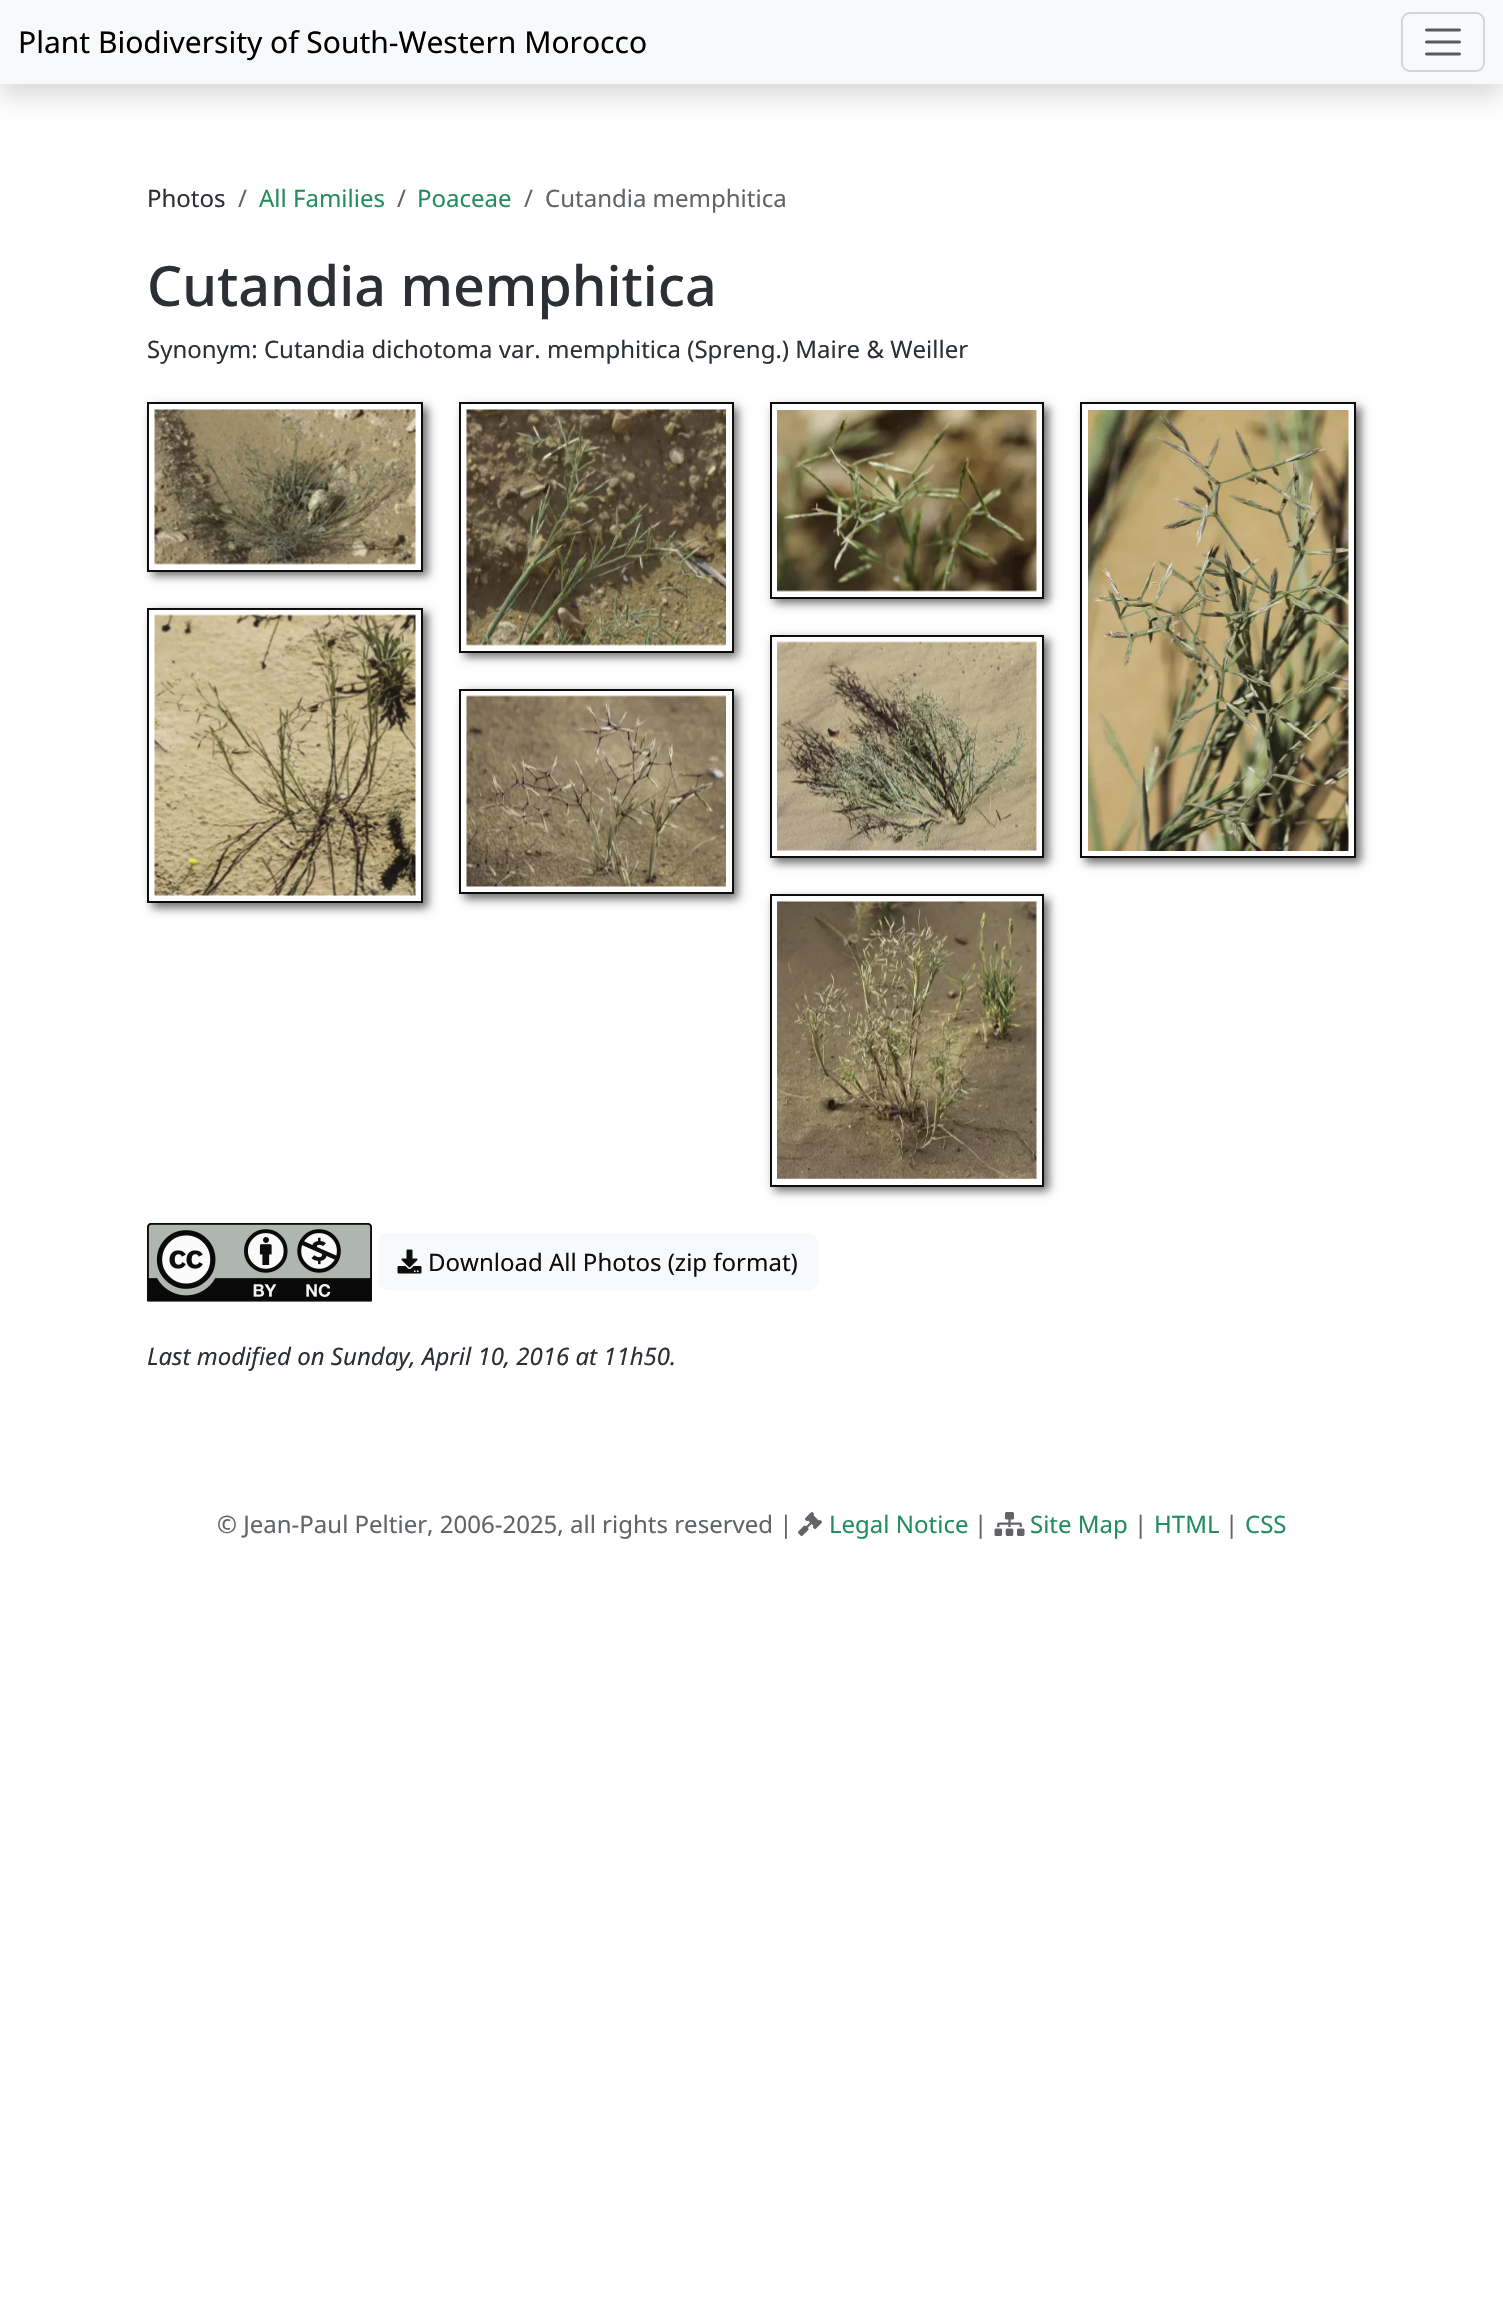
#include "include/core/SkBlurTypes.h"
#include "include/core/SkCanvas.h"
#include "include/core/SkData.h"
#include "include/core/SkFont.h"
#include "include/core/SkFontMgr.h"
#include "include/core/SkImage.h"
#include "include/core/SkMaskFilter.h"
#include "include/core/SkPaint.h"
#include "include/core/SkPathBuilder.h"
#include "include/core/SkTextBlob.h"
#include "include/effects/SkDashPathEffect.h"
#include "include/effects/SkGradientShader.h"
#include "include/utils/SkParsePath.h"

extern sk_sp<SkFontMgr> fontMgr;

void draw(SkCanvas* canvas) {
    SkPaint p;
    p.setAntiAlias(true);
    auto font = [&](const char* family, int weight, float size, bool italic = false) {
        SkFontStyle style(weight, SkFontStyle::kNormal_Width,
            italic ? SkFontStyle::kItalic_Slant : SkFontStyle::kUpright_Slant);
        SkFont result(fontMgr->matchFamilyStyle(family, style), size);
        result.setSubpixel(true);
        return result;
    };
    auto drawPhoto = [&](const char* path, float l, float t, float r, float b) {
        auto image = SkImages::DeferredFromEncodedData(SkData::MakeFromFileName(path));
        canvas->drawImageRect(image, SkRect::MakeLTRB(l, t, r, b), SkSamplingOptions());
    };
    canvas->clear(0xFFFFFFFF);
    p.setColor(0x26000000);
    p.setMaskFilter(SkMaskFilter::MakeBlur(kNormal_SkBlurStyle, 12));
    canvas->drawRect(SkRect::MakeLTRB(0, 12, 1503, 96), p);
    p.setMaskFilter(nullptr);
    p.setColor(0xFFF8F9FA);
    canvas->drawRect(SkRect::MakeLTRB(0, 0, 1503, 84), p);
    auto font1 = font("Noto Sans", 400, 30);
    p.setColor(0xFF000000);
    canvas->drawString("Plant Biodiversity of South-Western Morocco", 18, 53, font1, p);
    p.setStyle(SkPaint::kStroke_Style);
    p.setStrokeWidth(2);
    p.setColor(0xFFD3D4D5);
    canvas->drawRoundRect(SkRect::MakeLTRB(1402, 13, 1484, 71), 8, 8, p);
    p.setStrokeWidth(3);
    p.setStrokeCap(SkPaint::kRound_Cap);
    p.setColor(0xFF575A5D);
    canvas->drawPath(SkPathBuilder().moveTo(1426.5f, 30).lineTo(1459.5f, 30).moveTo(1426.5f, 42).lineTo(1459.5f, 42).moveTo(1426.5f, 54).lineTo(1459.5f, 54).detach(), p);
    auto font2 = font("Noto Sans", 400, 24);
    p.setStyle(SkPaint::kFill_Style);
    p.setColor(0xFF2C3034);
    canvas->drawString("Photos", 147, 207, font2, p);
    p.setColor(0xFF616467);
    canvas->drawString("/", 238, 207, font2, p);
    p.setColor(0xFF258D5D);
    canvas->drawString("All Families", 259, 207, font2, p);
    p.setColor(0xFF616467);
    canvas->drawString("/", 397, 207, font2, p);
    p.setColor(0xFF258D5D);
    canvas->drawString("Poaceae", 417, 207, font2, p);
    p.setColor(0xFF616467);
    canvas->drawString("/", 524, 207, font2, p);
    canvas->drawString("Cutandia memphitica", 545, 207, font2, p);
    auto font3 = font("Noto Sans", 500, 55.5f);
    p.setColor(0xFF2C3034);
    canvas->drawString("Cutandia memphitica", 147, 306, font3, p);
    canvas->drawString("Synonym: Cutandia dichotoma var. memphitica (Spreng.) Maire & Weiller", 147, 358, font2, p);
    canvas->save();
    canvas->clipPath(SkPathBuilder(SkPathFillType::kEvenOdd).moveTo(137, 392).lineTo(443, 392).lineTo(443, 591).lineTo(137, 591).close().moveTo(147, 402).lineTo(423, 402).lineTo(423, 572).lineTo(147, 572).close().detach(), true);
    p.setColor(0xFF6D6D6D);
    p.setMaskFilter(SkMaskFilter::MakeBlur(kNormal_SkBlurStyle, 4.5f));
    canvas->drawRect(SkRect::MakeLTRB(152, 407, 428, 576), p);
    p.setMaskFilter(nullptr);
    canvas->restore();
    p.setStyle(SkPaint::kStroke_Style);
    p.setStrokeWidth(2);
    p.setStrokeCap(SkPaint::kButt_Cap);
    p.setColor(0xFF0D0D0D);
    canvas->drawRect(SkRect::MakeLTRB(148, 403, 422, 571), p);
    drawPhoto("media/1.png", 154, 409, 416, 565);
    canvas->save();
    canvas->clipPath(SkPathBuilder(SkPathFillType::kEvenOdd).moveTo(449, 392).lineTo(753, 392).lineTo(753, 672).lineTo(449, 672).close().moveTo(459, 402).lineTo(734, 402).lineTo(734, 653).lineTo(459, 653).close().detach(), true);
    p.setStyle(SkPaint::kFill_Style);
    p.setColor(0xFF6D6D6D);
    p.setMaskFilter(SkMaskFilter::MakeBlur(kNormal_SkBlurStyle, 4.5f));
    canvas->drawRect(SkRect::MakeLTRB(464, 407, 738, 657), p);
    p.setMaskFilter(nullptr);
    canvas->restore();
    p.setStyle(SkPaint::kStroke_Style);
    p.setColor(0xFF0D0D0D);
    canvas->drawRect(SkRect::MakeLTRB(460, 403, 733, 652), p);
    drawPhoto("media/2.png", 466, 409, 726, 646);
    canvas->save();
    canvas->clipPath(SkPathBuilder(SkPathFillType::kEvenOdd).moveTo(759, 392).lineTo(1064, 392).lineTo(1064, 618).lineTo(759, 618).close().moveTo(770, 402).lineTo(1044, 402).lineTo(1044, 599).lineTo(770, 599).close().detach(), true);
    p.setStyle(SkPaint::kFill_Style);
    p.setColor(0xFF6D6D6D);
    p.setMaskFilter(SkMaskFilter::MakeBlur(kNormal_SkBlurStyle, 4.5f));
    canvas->drawRect(SkRect::MakeLTRB(774, 407, 1049, 603), p);
    p.setMaskFilter(nullptr);
    canvas->restore();
    p.setStyle(SkPaint::kStroke_Style);
    p.setColor(0xFF0D0D0D);
    canvas->drawRect(SkRect::MakeLTRB(771, 403, 1043, 598), p);
    drawPhoto("media/3.png", 777, 410, 1037, 592);
    canvas->save();
    canvas->clipPath(SkPathBuilder(SkPathFillType::kEvenOdd).moveTo(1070, 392).lineTo(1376, 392).lineTo(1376, 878).lineTo(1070, 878).close().moveTo(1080, 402).lineTo(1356, 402).lineTo(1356, 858).lineTo(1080, 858).close().detach(), true);
    p.setStyle(SkPaint::kFill_Style);
    p.setColor(0xFF6D6D6D);
    p.setMaskFilter(SkMaskFilter::MakeBlur(kNormal_SkBlurStyle, 4.5f));
    canvas->drawRect(SkRect::MakeLTRB(1085, 407, 1361, 863), p);
    p.setMaskFilter(nullptr);
    canvas->restore();
    p.setStyle(SkPaint::kStroke_Style);
    p.setColor(0xFF0D0D0D);
    canvas->drawRect(SkRect::MakeLTRB(1081, 403, 1355, 857), p);
    drawPhoto("media/4.png", 1088, 410, 1349, 851);
    canvas->save();
    canvas->clipPath(SkPathBuilder(SkPathFillType::kEvenOdd).moveTo(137, 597).lineTo(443, 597).lineTo(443, 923).lineTo(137, 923).close().moveTo(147, 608).lineTo(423, 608).lineTo(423, 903).lineTo(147, 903).close().detach(), true);
    p.setStyle(SkPaint::kFill_Style);
    p.setColor(0xFF6D6D6D);
    p.setMaskFilter(SkMaskFilter::MakeBlur(kNormal_SkBlurStyle, 4.5f));
    canvas->drawRect(SkRect::MakeLTRB(152, 612, 428, 908), p);
    p.setMaskFilter(nullptr);
    canvas->restore();
    p.setStyle(SkPaint::kStroke_Style);
    p.setColor(0xFF0D0D0D);
    canvas->drawRect(SkRect::MakeLTRB(148, 609, 422, 902), p);
    drawPhoto("media/5.png", 154, 614, 416, 896);
    canvas->save();
    canvas->clipPath(SkPathBuilder(SkPathFillType::kEvenOdd).moveTo(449, 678).lineTo(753, 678).lineTo(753, 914).lineTo(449, 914).close().moveTo(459, 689).lineTo(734, 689).lineTo(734, 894).lineTo(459, 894).close().detach(), true);
    p.setStyle(SkPaint::kFill_Style);
    p.setColor(0xFF6D6D6D);
    p.setMaskFilter(SkMaskFilter::MakeBlur(kNormal_SkBlurStyle, 4.5f));
    canvas->drawRect(SkRect::MakeLTRB(464, 693, 738, 899), p);
    p.setMaskFilter(nullptr);
    canvas->restore();
    p.setStyle(SkPaint::kStroke_Style);
    p.setColor(0xFF0D0D0D);
    canvas->drawRect(SkRect::MakeLTRB(460, 690, 733, 893), p);
    drawPhoto("media/6.png", 466, 695, 726, 887);
    canvas->save();
    canvas->clipPath(SkPathBuilder(SkPathFillType::kEvenOdd).moveTo(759, 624).lineTo(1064, 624).lineTo(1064, 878).lineTo(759, 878).close().moveTo(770, 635).lineTo(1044, 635).lineTo(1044, 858).lineTo(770, 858).close().detach(), true);
    p.setStyle(SkPaint::kFill_Style);
    p.setColor(0xFF6D6D6D);
    p.setMaskFilter(SkMaskFilter::MakeBlur(kNormal_SkBlurStyle, 4.5f));
    canvas->drawRect(SkRect::MakeLTRB(774, 639, 1049, 863), p);
    p.setMaskFilter(nullptr);
    canvas->restore();
    p.setStyle(SkPaint::kStroke_Style);
    p.setColor(0xFF0D0D0D);
    canvas->drawRect(SkRect::MakeLTRB(771, 636, 1043, 857), p);
    drawPhoto("media/7.png", 777, 641, 1037, 851);
    canvas->save();
    canvas->clipPath(SkPathBuilder(SkPathFillType::kEvenOdd).moveTo(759, 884).lineTo(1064, 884).lineTo(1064, 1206).lineTo(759, 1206).close().moveTo(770, 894).lineTo(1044, 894).lineTo(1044, 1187).lineTo(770, 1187).close().detach(), true);
    p.setStyle(SkPaint::kFill_Style);
    p.setColor(0xFF6D6D6D);
    p.setMaskFilter(SkMaskFilter::MakeBlur(kNormal_SkBlurStyle, 4.5f));
    canvas->drawRect(SkRect::MakeLTRB(774, 899, 1049, 1191), p);
    p.setMaskFilter(nullptr);
    canvas->restore();
    p.setStyle(SkPaint::kStroke_Style);
    p.setColor(0xFF0D0D0D);
    canvas->drawRect(SkRect::MakeLTRB(771, 895, 1043, 1186), p);
    drawPhoto("media/8.png", 777, 901, 1037, 1179);
    drawPhoto("media/9.png", 147, 1223, 372, 1302);
    p.setStyle(SkPaint::kFill_Style);
    p.setColor(0xFFF8F9FA);
    canvas->drawRoundRect(SkRect::MakeLTRB(378, 1233, 818, 1290), 9, 9, p);
    drawPhoto("media/10.png", 397, 1249, 422, 1274);
    p.setColor(0xFF0D0D0D);
    canvas->drawString("Download All Photos (zip format)", 428, 1271, font2, p);
    auto font4 = font("Noto Sans", 400, 24, true);
    p.setColor(0xFF2C3034);
    canvas->drawString("Last modified on Sunday, April 10, 2016 at 11h50.", 147, 1365, font4, p);
    p.setColor(0xFF616467);
    canvas->drawString("© Jean-Paul Peltier, 2006-2025, all rights reserved |", 217, 1533, font2, p);
    drawPhoto("media/11.png", 798, 1512, 822, 1536);
    p.setColor(0xFF258D5D);
    canvas->drawString("Legal Notice", 829, 1533, font2, p);
    p.setColor(0xFF616467);
    canvas->drawString("|", 974, 1533, font2, p);
    drawPhoto("media/12.png", 994, 1512, 1025, 1536);
    p.setColor(0xFF258D5D);
    canvas->drawString("Site Map", 1030, 1533, font2, p);
    p.setColor(0xFF616467);
    canvas->drawString("|", 1134, 1533, font2, p);
    p.setColor(0xFF258D5D);
    canvas->drawString("HTML", 1154, 1533, font2, p);
    p.setColor(0xFF616467);
    canvas->drawString("|", 1225, 1533, font2, p);
    p.setColor(0xFF258D5D);
    canvas->drawString("CSS", 1245, 1533, font2, p);
}
